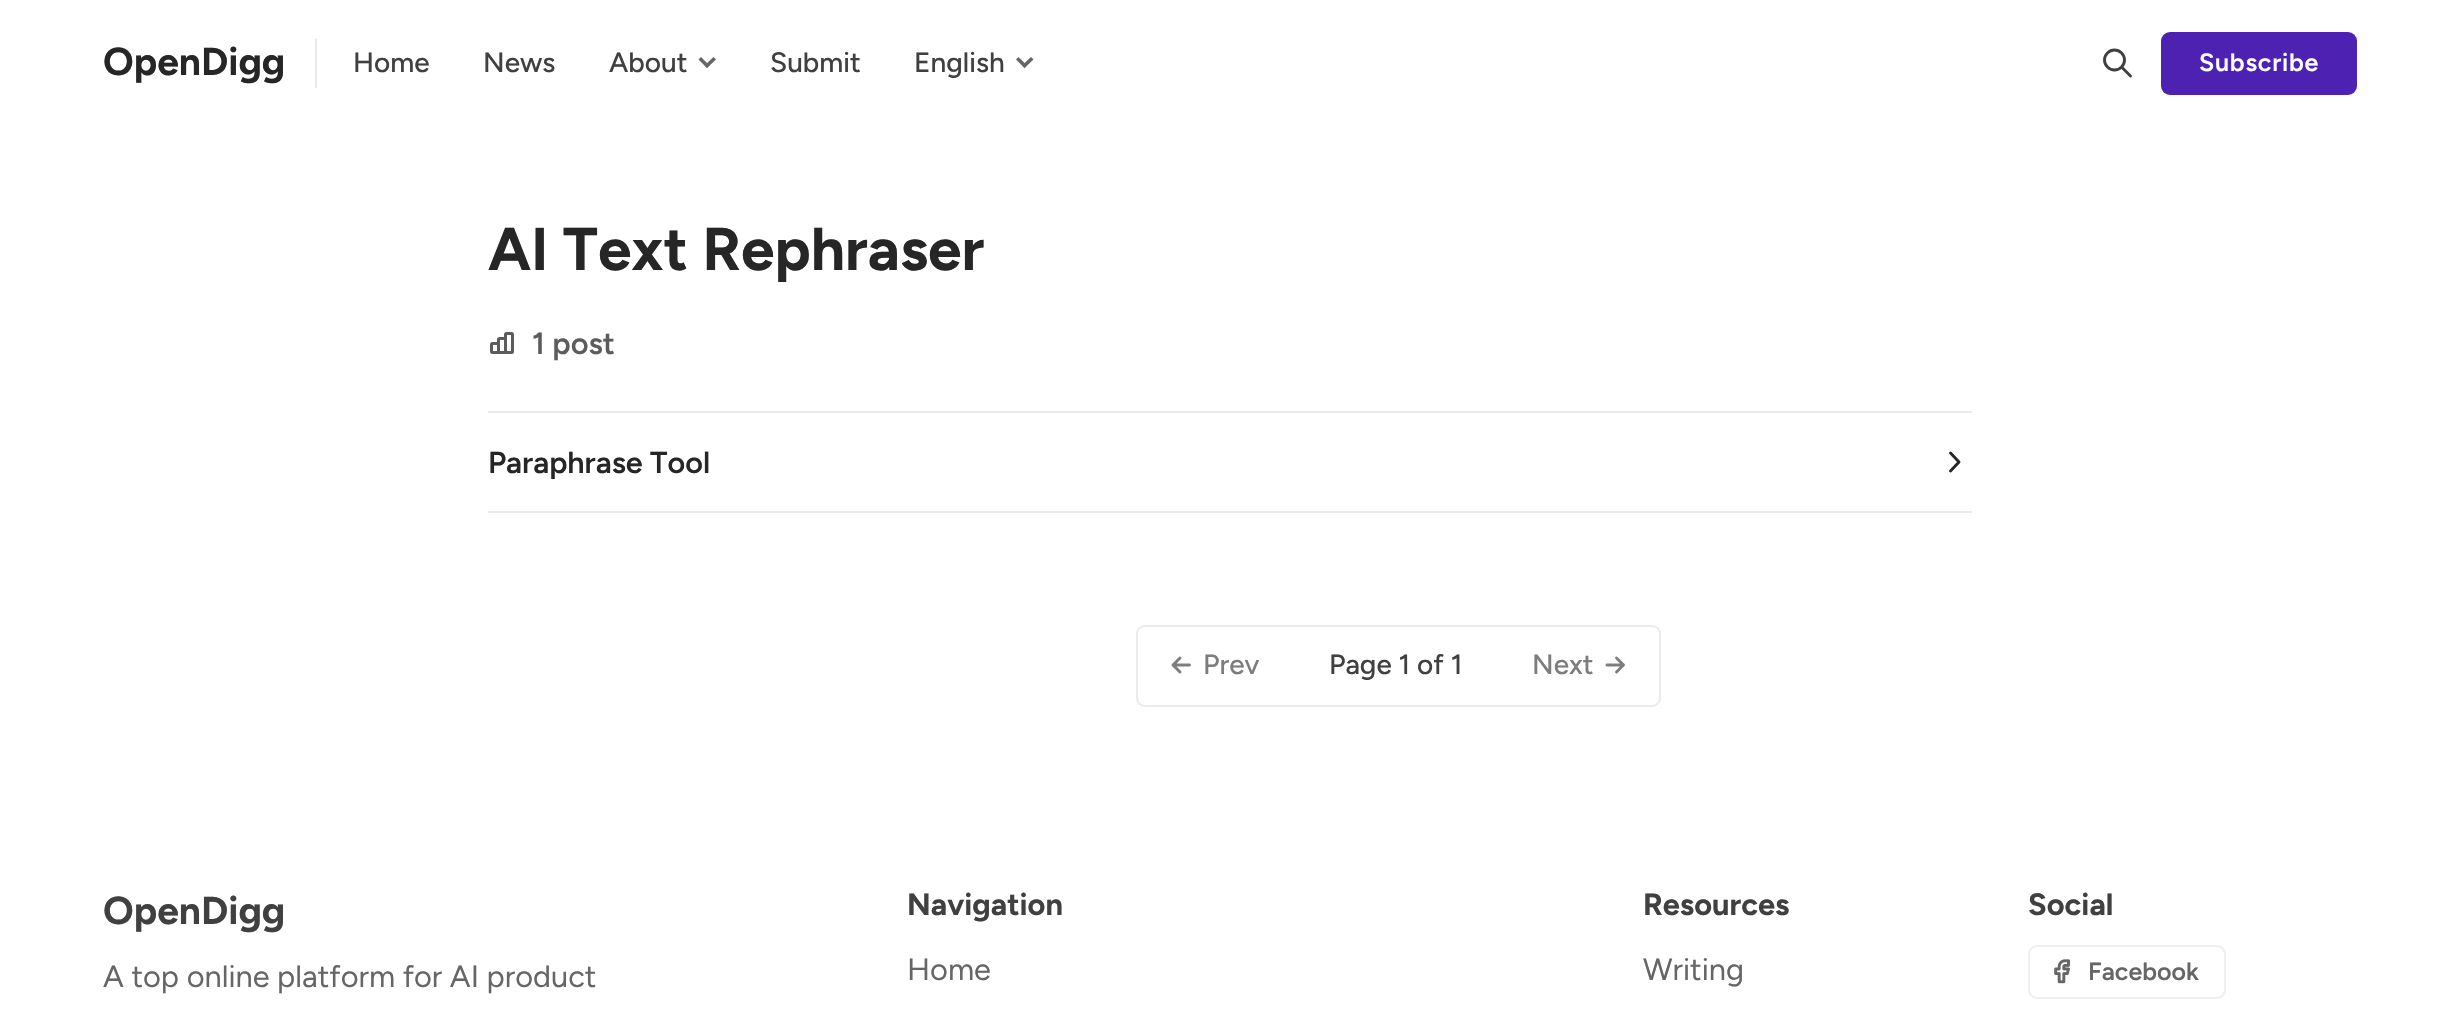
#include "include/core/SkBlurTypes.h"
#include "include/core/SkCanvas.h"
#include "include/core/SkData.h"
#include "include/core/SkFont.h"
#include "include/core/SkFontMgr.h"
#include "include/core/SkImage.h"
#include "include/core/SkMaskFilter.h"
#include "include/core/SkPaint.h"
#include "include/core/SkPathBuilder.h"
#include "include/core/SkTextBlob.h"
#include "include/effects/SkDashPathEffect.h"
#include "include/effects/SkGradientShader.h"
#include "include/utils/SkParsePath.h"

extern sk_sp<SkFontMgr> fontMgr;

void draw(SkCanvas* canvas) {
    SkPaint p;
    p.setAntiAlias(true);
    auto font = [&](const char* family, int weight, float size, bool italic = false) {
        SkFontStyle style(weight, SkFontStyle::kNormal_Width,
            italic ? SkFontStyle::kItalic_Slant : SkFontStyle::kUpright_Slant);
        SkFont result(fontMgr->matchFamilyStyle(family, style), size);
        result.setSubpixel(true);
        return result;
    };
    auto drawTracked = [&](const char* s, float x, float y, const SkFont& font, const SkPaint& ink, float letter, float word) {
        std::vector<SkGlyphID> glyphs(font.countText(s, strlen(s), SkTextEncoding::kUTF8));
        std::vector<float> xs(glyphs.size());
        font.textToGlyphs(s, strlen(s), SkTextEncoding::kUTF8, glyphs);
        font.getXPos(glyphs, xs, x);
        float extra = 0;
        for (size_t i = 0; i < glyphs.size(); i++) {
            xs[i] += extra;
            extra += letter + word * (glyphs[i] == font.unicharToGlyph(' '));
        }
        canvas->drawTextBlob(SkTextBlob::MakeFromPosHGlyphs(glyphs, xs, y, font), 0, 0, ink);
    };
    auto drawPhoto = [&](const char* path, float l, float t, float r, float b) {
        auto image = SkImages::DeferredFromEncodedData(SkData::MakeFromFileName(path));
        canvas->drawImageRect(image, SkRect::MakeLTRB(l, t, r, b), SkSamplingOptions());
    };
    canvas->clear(0xFFFFFFFF);
    auto font1 = font("Figtree", 700, 39);
    p.setColor(0xFF262626);
    canvas->drawString("OpenDigg", 103, 75, font1, p);
    p.setColor(0xFFE9E9E9);
    canvas->drawRect(SkRect::MakeLTRB(315, 39, 317, 88), p);
    auto font2 = font("Figtree", 500, 28);
    p.setColor(0xFF404040);
    {
        const struct { const char* s; float x, y; } items[] = {
            {"Home", 353, 72},
            {"News", 483, 72},
            {"About", 609, 72},
        };
        for (auto [s, x, y] : items) {
            canvas->drawString(s, x, y, font2, p);
        }
    }
    p.setColor(0xFF666666);
    canvas->drawPath(SkPathBuilder().moveTo(716, 59.5f).lineTo(707, 68).lineTo(704.5f, 65.5f).lineTo(713.5f, 57).close().detach(), p);
    canvas->drawPath(SkPathBuilder().moveTo(709.5f, 65.5f).lineTo(707, 68).lineTo(698.5f, 59.5f).lineTo(701, 57).close().detach(), p);
    p.setColor(0xFF404040);
    canvas->drawString("Submit", 770, 72, font2, p);
    canvas->drawString("English", 914, 72, font2, p);
    p.setColor(0xFF666666);
    canvas->drawPath(SkPathBuilder().moveTo(1033.5f, 59.5f).lineTo(1024.5f, 68).lineTo(1022, 65.5f).lineTo(1031, 57).close().detach(), p);
    canvas->drawPath(SkPathBuilder().moveTo(1027, 65.5f).lineTo(1024.5f, 68).lineTo(1016, 59.5f).lineTo(1018.5f, 57).close().detach(), p);
    p.setStyle(SkPaint::kStroke_Style);
    p.setStrokeWidth(2.9f);
    p.setColor(0xFF404040);
    canvas->drawCircle(2114.5f, 60, 10, p);
    p.setStrokeCap(SkPaint::kRound_Cap);
    p.setStrokeJoin(SkPaint::kRound_Join);
    canvas->drawPath(SkPathBuilder().moveTo(2130.5f, 76).lineTo(2122, 67.5f).detach(), p);
    p.setStyle(SkPaint::kFill_Style);
    p.setColor(0xFF4D22B2);
    canvas->drawRoundRect(SkRect::MakeLTRB(2161, 32, 2357, 95), 9, 9, p);
    auto font3 = font("Figtree", 600, 25);
    p.setColor(0xFFFFFFFF);
    drawTracked("Subscribe", 2199, 71, font3, p, 0.75f, 0);
    auto font4 = font("Figtree", 700, 60.25f);
    p.setColor(0xFF262626);
    canvas->drawString("AI Text Rephraser", 488, 270, font4, p);
    p.setStyle(SkPaint::kStroke_Style);
    p.setStrokeWidth(3);
    p.setStrokeCap(SkPaint::kButt_Cap);
    p.setStrokeJoin(SkPaint::kMiter_Join);
    p.setColor(0xFF5C5C5C);
    canvas->drawRoundRect(SkRect::MakeLTRB(491.5f, 343.5f, 498.5f, 352.5f), 1, 1, p);
    canvas->drawRoundRect(SkRect::MakeLTRB(498.5f, 338.5f, 505.5f, 352.5f), 1, 1, p);
    canvas->drawRoundRect(SkRect::MakeLTRB(505.5f, 333.5f, 512.5f, 352.5f), 1, 1, p);
    p.setStrokeWidth(2.9f);
    p.setStrokeCap(SkPaint::kRound_Cap);
    p.setStrokeJoin(SkPaint::kRound_Join);
    canvas->drawPath(SkPathBuilder().moveTo(493, 352.5f).lineTo(509, 352.5f).detach(), p);
    auto font5 = font("Figtree", 600, 30.75f);
    p.setStyle(SkPaint::kFill_Style);
    canvas->drawString("1 post", 532, 354, font5, p);
    p.setColor(0xFFEBEBEB);
    canvas->drawRect(SkRect::MakeLTRB(488, 411, 1972, 413), p);
    canvas->drawRect(SkRect::MakeLTRB(488, 511, 1972, 513), p);
    auto font6 = font("Figtree", 600, 30.5f);
    p.setColor(0xFF262626);
    canvas->drawString("Paraphrase Tool", 488, 473, font6, p);
    p.setStyle(SkPaint::kStroke_Style);
    canvas->drawPath(SkPathBuilder().moveTo(1950.5f, 453).lineTo(1959, 462).lineTo(1950.5f, 471).detach(), p);
    p.setStrokeWidth(2);
    p.setStrokeCap(SkPaint::kButt_Cap);
    p.setStrokeJoin(SkPaint::kMiter_Join);
    p.setColor(0xFFEBEBEB);
    canvas->drawRoundRect(SkRect::MakeLTRB(1137, 626, 1660, 706), 8, 8, p);
    p.setStrokeWidth(2.9f);
    p.setStrokeCap(SkPaint::kRound_Cap);
    p.setStrokeJoin(SkPaint::kRound_Join);
    p.setColor(0xFF7D7D7D);
    canvas->drawPath(SkPathBuilder().moveTo(1173, 665).lineTo(1189.5f, 665).moveTo(1173, 665).lineTo(1180, 672).moveTo(1173, 665).lineTo(1180, 658).detach(), p);
    p.setStyle(SkPaint::kFill_Style);
    canvas->drawString("Prev", 1203, 674, font2, p);
    p.setColor(0xFF404040);
    canvas->drawString("Page 1 of 1", 1329, 674, font2, p);
    p.setColor(0xFF7D7D7D);
    canvas->drawString("Next", 1532, 674, font2, p);
    p.setStyle(SkPaint::kStroke_Style);
    canvas->drawPath(SkPathBuilder().moveTo(1607, 665).lineTo(1623.5f, 665).moveTo(1616.5f, 672).lineTo(1623.5f, 665).moveTo(1616.5f, 658).lineTo(1623.5f, 665).detach(), p);
    p.setStyle(SkPaint::kFill_Style);
    p.setColor(0xFF404040);
    canvas->drawString("OpenDigg", 103, 924, font1, p);
    auto font7 = font("Figtree", 400, 30.75f);
    p.setColor(0xFF666666);
    canvas->drawString("A top online platform for AI product", 103, 987, font7, p);
    auto font8 = font("Figtree", 700, 30.75f);
    p.setColor(0xFF404040);
    canvas->drawString("Navigation", 907, 915, font8, p);
    p.setColor(0xFF666666);
    canvas->drawString("Home", 907, 980, font7, p);
    p.setColor(0xFF404040);
    canvas->drawString("Resources", 1643, 915, font8, p);
    p.setColor(0xFF666666);
    canvas->drawString("Writing", 1643, 980, font7, p);
    p.setColor(0xFF404040);
    canvas->drawString("Social", 2028, 915, font8, p);
    p.setStyle(SkPaint::kStroke_Style);
    p.setStrokeWidth(2);
    p.setStrokeCap(SkPaint::kButt_Cap);
    p.setStrokeJoin(SkPaint::kMiter_Join);
    p.setColor(0xFFEFEFEF);
    canvas->drawRoundRect(SkRect::MakeLTRB(2029, 946, 2225, 998), 8, 8, p);
    drawPhoto("media/1.png", 2054, 959, 2070, 984);
    p.setStyle(SkPaint::kFill_Style);
    p.setColor(0xFF666666);
    canvas->drawString("Facebook", 2088, 980, font3, p);
}
